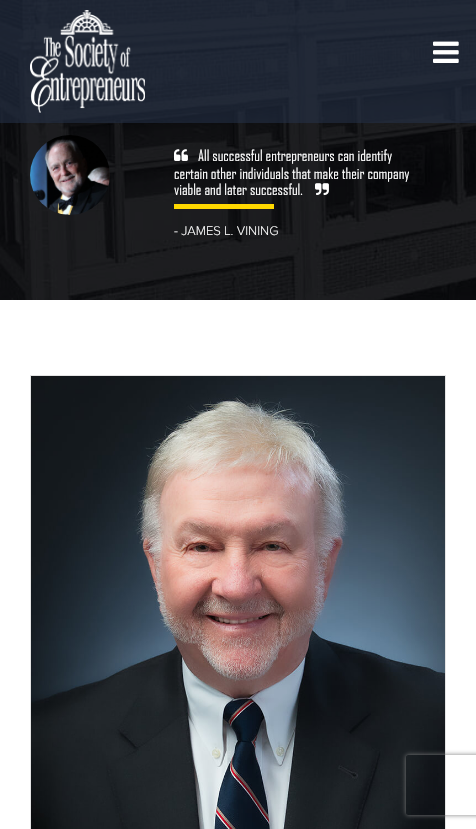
#include "include/core/SkBlurTypes.h"
#include "include/core/SkCanvas.h"
#include "include/core/SkData.h"
#include "include/core/SkFont.h"
#include "include/core/SkFontMgr.h"
#include "include/core/SkImage.h"
#include "include/core/SkMaskFilter.h"
#include "include/core/SkPaint.h"
#include "include/core/SkPathBuilder.h"
#include "include/core/SkTextBlob.h"
#include "include/effects/SkDashPathEffect.h"
#include "include/effects/SkGradientShader.h"
#include "include/utils/SkParsePath.h"

extern sk_sp<SkFontMgr> fontMgr;

void draw(SkCanvas* canvas) {
    SkPaint p;
    p.setAntiAlias(true);
    auto font = [&](const char* family, int weight, float size, bool italic = false) {
        SkFontStyle style(weight, SkFontStyle::kNormal_Width,
            italic ? SkFontStyle::kItalic_Slant : SkFontStyle::kUpright_Slant);
        SkFont result(fontMgr->matchFamilyStyle(family, style), size);
        result.setSubpixel(true);
        return result;
    };
    auto drawPhoto = [&](const char* path, float l, float t, float r, float b) {
        auto image = SkImages::DeferredFromEncodedData(SkData::MakeFromFileName(path));
        canvas->drawImageRect(image, SkRect::MakeLTRB(l, t, r, b), SkSamplingOptions());
    };
    canvas->clear(0xFFFFFFFF);
    drawPhoto("media/3.png", 0, 0, 476, 300);
    p.setColor(0x8C253249);
    canvas->drawRect(SkRect::MakeLTRB(0, 0, 476, 123), p);
    drawPhoto("media/1.png", 30, 10, 145, 113);
    drawPhoto("media/2.png", 433, 41, 459, 63);
    drawPhoto("media/4.png", 30, 135, 110, 215);
    drawPhoto("media/5.png", 174, 149, 188, 161);
    auto font1 = font("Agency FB", 400, 15);
    p.setColor(0xFFFFFFFF);
    {
        const struct { const char* s; float x, y; } items[] = {
            {"All successful entrepreneurs can identify", 198, 161},
            {"certain other individuals that make their company", 174, 179},
            {"viable and later successful.", 174, 195},
        };
        for (auto [s, x, y] : items) {
            canvas->drawString(s, x, y, font1, p);
        }
    }
    drawPhoto("media/6.png", 315, 183, 329, 195);
    p.setColor(0xFFFFD800);
    canvas->drawRect(SkRect::MakeLTRB(174, 204, 274, 209), p);
    auto font2 = font("Proxima Nova", 300, 13);
    p.setColor(0xFFFFFFFF);
    canvas->drawString("- JAMES L. VINING", 174, 235, font2, p);
    p.setStyle(SkPaint::kStroke_Style);
    p.setStrokeWidth(1);
    p.setColor(0xFFE4E4E4);
    canvas->drawRect(SkRect::MakeLTRB(30.5f, 375.5f, 445.5f, 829.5f), p);
    drawPhoto("media/7.png", 31, 376, 445, 829);
    canvas->save();
    canvas->clipPath(SkPathBuilder(SkPathFillType::kEvenOdd).moveTo(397, 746).lineTo(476, 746).lineTo(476, 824).lineTo(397, 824).close().moveTo(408, 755).lineTo(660, 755).cubicTo(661, 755, 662, 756, 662, 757).lineTo(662, 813).cubicTo(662, 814, 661, 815, 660, 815).lineTo(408, 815).cubicTo(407, 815, 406, 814, 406, 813).lineTo(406, 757).cubicTo(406, 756, 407, 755, 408, 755).close().detach(), true);
    p.setStyle(SkPaint::kFill_Style);
    p.setColor(0xFF808080);
    p.setMaskFilter(SkMaskFilter::MakeBlur(kNormal_SkBlurStyle, 2.5f));
    canvas->drawRoundRect(SkRect::MakeLTRB(406, 755, 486, 815), 2, 2, p);
    p.setMaskFilter(nullptr);
    canvas->restore();
}
